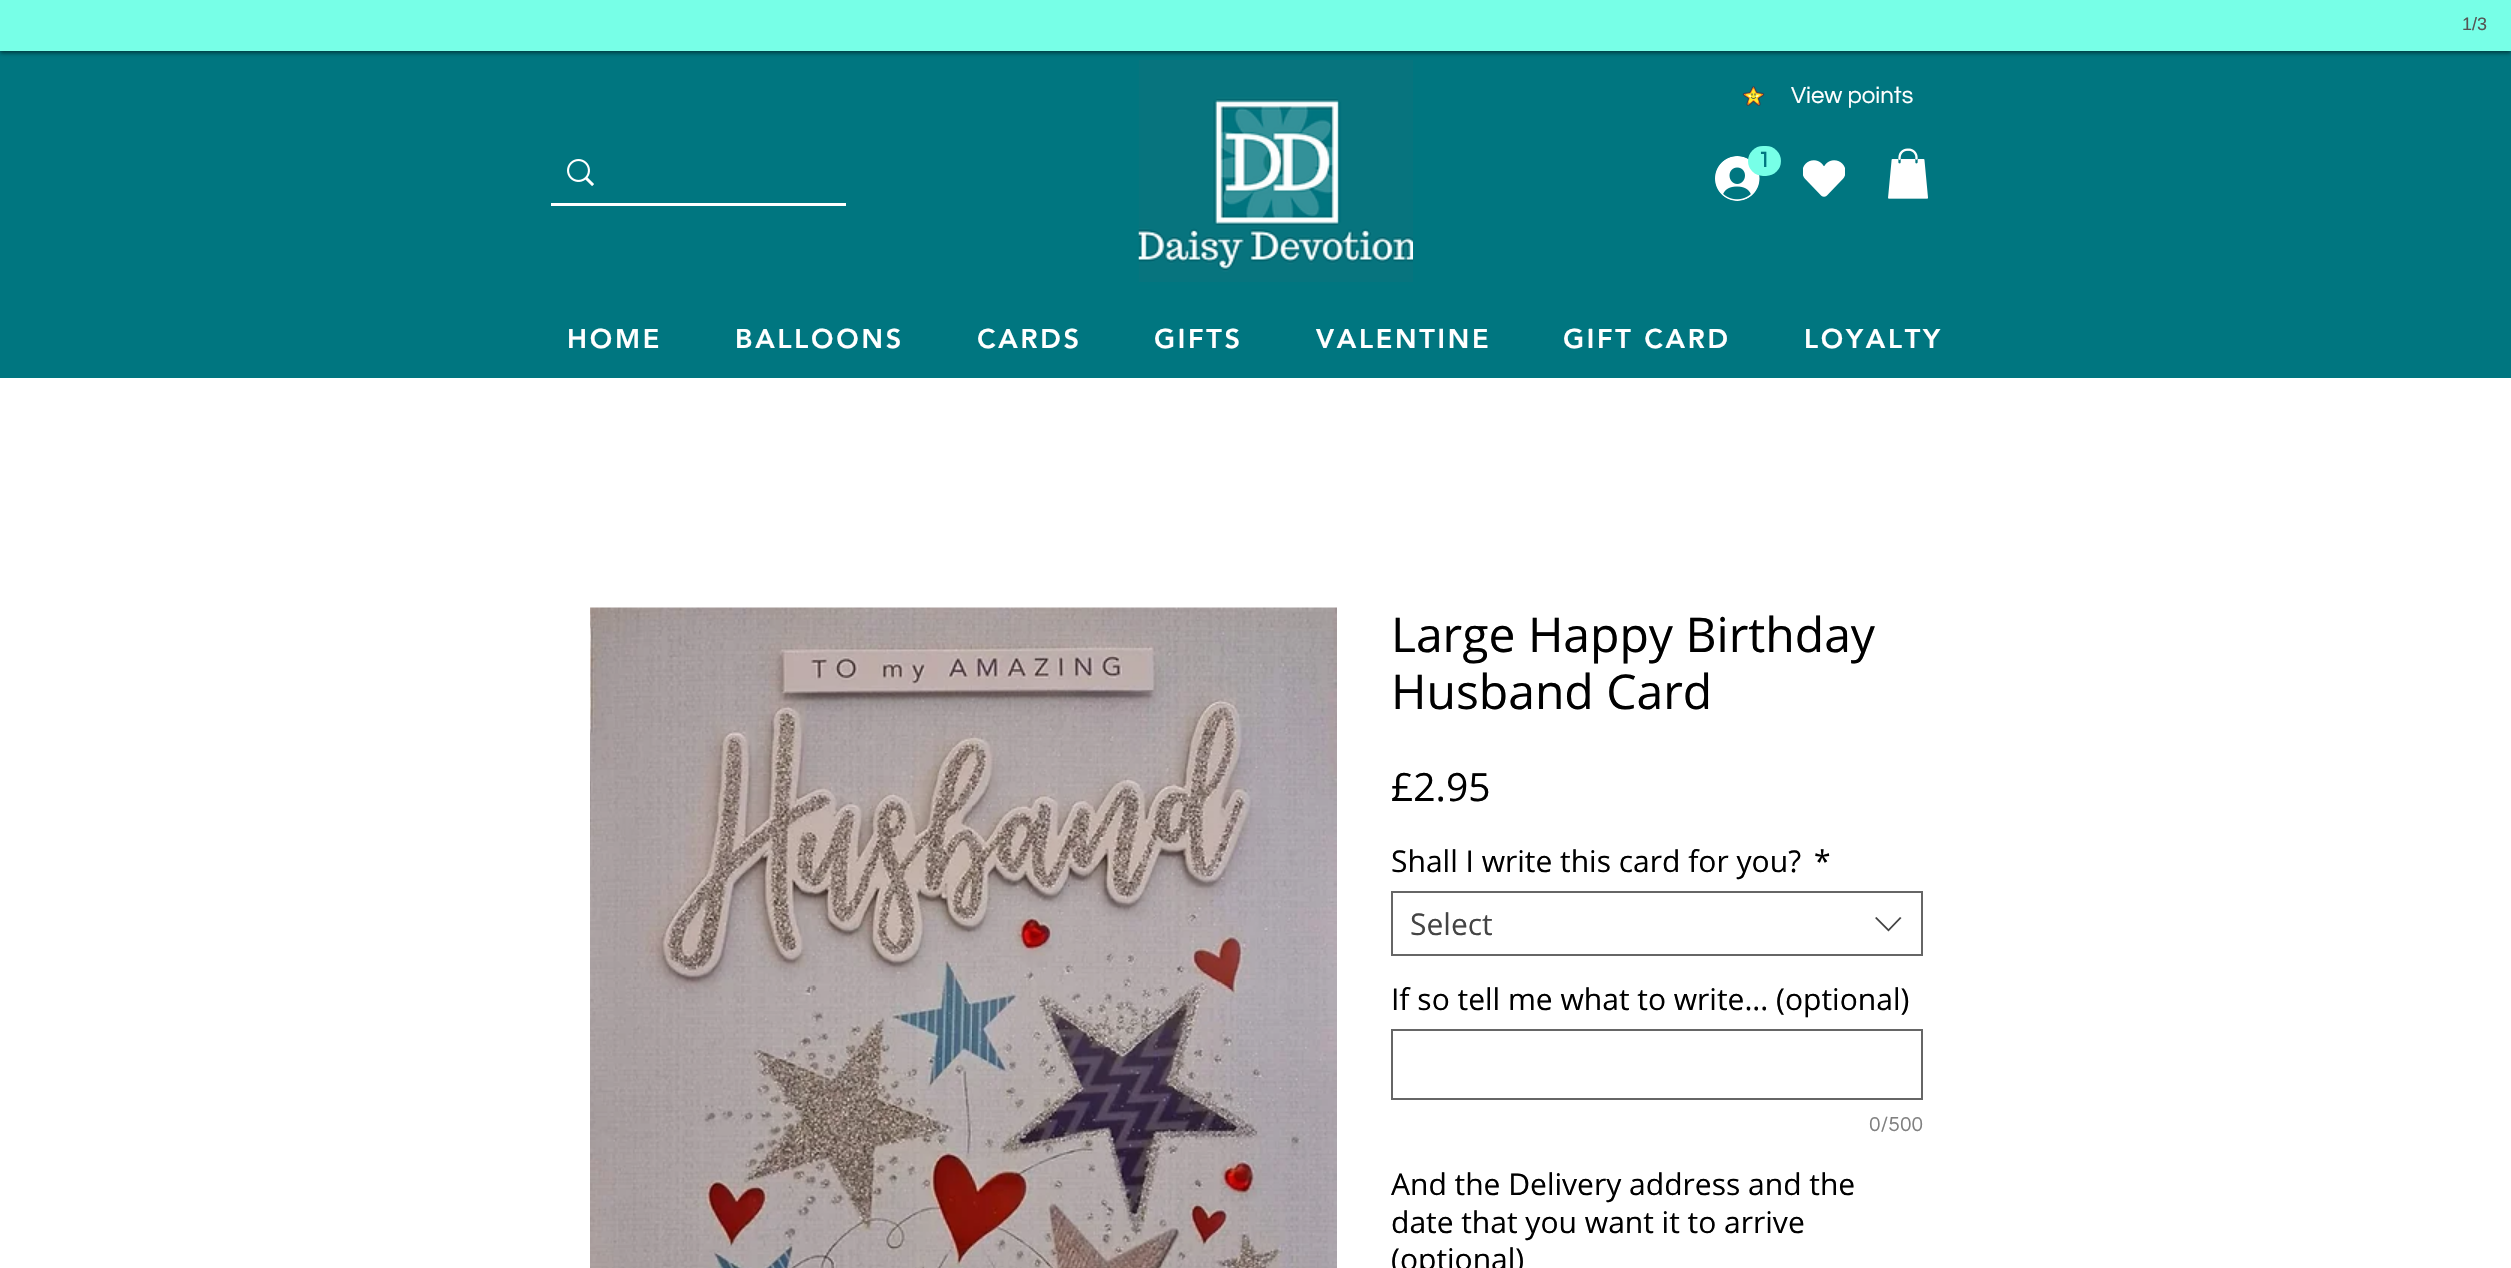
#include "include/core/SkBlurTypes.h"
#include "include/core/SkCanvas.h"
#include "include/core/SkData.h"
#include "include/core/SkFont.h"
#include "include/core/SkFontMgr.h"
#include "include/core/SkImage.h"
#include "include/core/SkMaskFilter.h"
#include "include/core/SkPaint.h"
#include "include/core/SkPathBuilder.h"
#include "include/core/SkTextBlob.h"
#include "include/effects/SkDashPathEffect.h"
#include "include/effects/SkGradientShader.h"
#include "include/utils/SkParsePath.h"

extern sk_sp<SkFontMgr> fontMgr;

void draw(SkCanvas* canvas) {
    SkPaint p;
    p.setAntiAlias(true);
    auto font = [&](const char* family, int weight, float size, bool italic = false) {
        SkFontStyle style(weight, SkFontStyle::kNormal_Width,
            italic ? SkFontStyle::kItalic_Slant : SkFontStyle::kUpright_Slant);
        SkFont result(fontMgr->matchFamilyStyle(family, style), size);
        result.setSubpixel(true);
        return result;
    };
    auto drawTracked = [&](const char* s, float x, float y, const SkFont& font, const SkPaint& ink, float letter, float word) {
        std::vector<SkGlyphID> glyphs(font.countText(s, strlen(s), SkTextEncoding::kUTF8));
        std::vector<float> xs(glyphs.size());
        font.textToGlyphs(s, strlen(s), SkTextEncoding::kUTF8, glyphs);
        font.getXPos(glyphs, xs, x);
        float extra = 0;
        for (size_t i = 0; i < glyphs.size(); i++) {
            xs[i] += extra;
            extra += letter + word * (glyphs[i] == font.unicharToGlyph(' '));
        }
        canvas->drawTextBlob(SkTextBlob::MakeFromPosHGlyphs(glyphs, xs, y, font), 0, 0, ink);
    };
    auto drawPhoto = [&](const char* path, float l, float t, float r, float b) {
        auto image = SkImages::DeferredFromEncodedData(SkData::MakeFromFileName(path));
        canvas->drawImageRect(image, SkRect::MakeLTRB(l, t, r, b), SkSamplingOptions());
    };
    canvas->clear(0xFF007680);
    p.setColor(0x80000000);
    p.setMaskFilter(SkMaskFilter::MakeBlur(kNormal_SkBlurStyle, 2));
    canvas->drawRect(SkRect::MakeLTRB(0, 2, 2511, 53), p);
    p.setMaskFilter(nullptr);
    p.setColor(0xFF77FFE7);
    canvas->drawRect(SkRect::MakeLTRB(0, 0, 2511, 51), p);
    auto font1 = font("Liberation Sans", 400, 18);
    p.setColor(0xFF555555);
    canvas->drawString("1/3", 2462, 30, font1, p);
    drawPhoto("media/1.png", 1138, 60, 1413, 282);
    drawPhoto("media/2.png", 1742, 86, 1765, 106);
    auto font2 = font("Questrial", 400, 24);
    p.setColor(0xFFFFFFFF);
    canvas->drawString("View points", 1791, 103, font2, p);
    drawPhoto("media/3.png", 1715, 156, 1760, 201);
    drawPhoto("media/4.png", 1803, 160, 1845, 197);
    drawPhoto("media/5.png", 1888, 148, 1928, 199);
    canvas->drawRect(SkRect::MakeLTRB(551, 203, 846, 206), p);
    drawPhoto("media/6.png", 567, 159, 594, 186);
    p.setColor(0xFF77FFE7);
    canvas->drawRoundRect(SkRect::MakeLTRB(1748, 146, 1781, 176), 15, 15, p);
    auto font3 = font("Questrial", 700, 22);
    p.setColor(0xFF007680);
    canvas->drawString("1", 1758, 167, font3, p);
    auto font4 = font("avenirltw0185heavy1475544", 900, 27);
    p.setColor(0xFFFFFFFF);
    {
        const struct { const char* s; float x, y; } items[] = {
            {"HOME", 567, 348},
            {"BALLOONS", 735, 348},
            {"CARDS", 977, 348},
            {"GIFTS", 1154, 348},
            {"VALENTINE", 1316, 348},
            {"GIFT CARD", 1563, 348},
            {"LOYALTY", 1804, 348},
        };
        for (auto [s, x, y] : items) {
            drawTracked(s, x, y, font4, p, 2.75f, 0);
        }
    }
    canvas->drawRect(SkRect::MakeLTRB(0, 378, 2511, 1268), p);
    drawPhoto("media/7.png", 590, 607, 1337, 1268);
    auto font5 = font("Open Sans", 400, 48);
    p.setColor(0xFF000000);
    canvas->drawString("Large Happy Birthday", 1391, 652, font5, p);
    canvas->drawString("Husband Card", 1391, 709, font5, p);
    auto font6 = font("Open Sans", 400, 39);
    canvas->drawString("£2.95", 1391, 801, font6, p);
    auto font7 = font("Open Sans", 400, 30);
    canvas->drawString("Shall I write this card for you?", 1391, 872, font7, p);
    canvas->drawString("*", 1814, 872, font7, p);
    p.setStyle(SkPaint::kStroke_Style);
    p.setStrokeWidth(2);
    p.setColor(0xFF666666);
    canvas->drawRect(SkRect::MakeLTRB(1392, 892, 1922, 955), p);
    p.setStyle(SkPaint::kFill_Style);
    p.setColor(0xFF444444);
    canvas->drawString("Select", 1410, 935, font7, p);
    canvas->drawPath(SkPathBuilder(SkPathFillType::kEvenOdd).moveTo(1900, 917).lineTo(1901.5f, 918).lineTo(1888.5f, 931.5f).lineTo(1875, 918).lineTo(1876.5f, 917).lineTo(1888.5f, 929).close().detach(), p);
    p.setColor(0xFF000000);
    canvas->drawString("If so tell me what to write... (optional)", 1391, 1010, font7, p);
    p.setStyle(SkPaint::kStroke_Style);
    p.setColor(0xFF666666);
    canvas->drawRect(SkRect::MakeLTRB(1392, 1030, 1922, 1099), p);
    auto font8 = font("Questrial", 400, 21);
    p.setStyle(SkPaint::kFill_Style);
    p.setColor(0xFF808080);
    canvas->drawString("0/500", 1869, 1131, font8, p);
    p.setColor(0xFF000000);
    {
        const struct { const char* s; float x, y; } items[] = {
            {"And the Delivery address and the", 1391, 1195},
            {"date that you want it to arrive", 1391, 1233},
            {"(optional)", 1391, 1270},
        };
        for (auto [s, x, y] : items) {
            canvas->drawString(s, x, y, font7, p);
        }
    }
}
